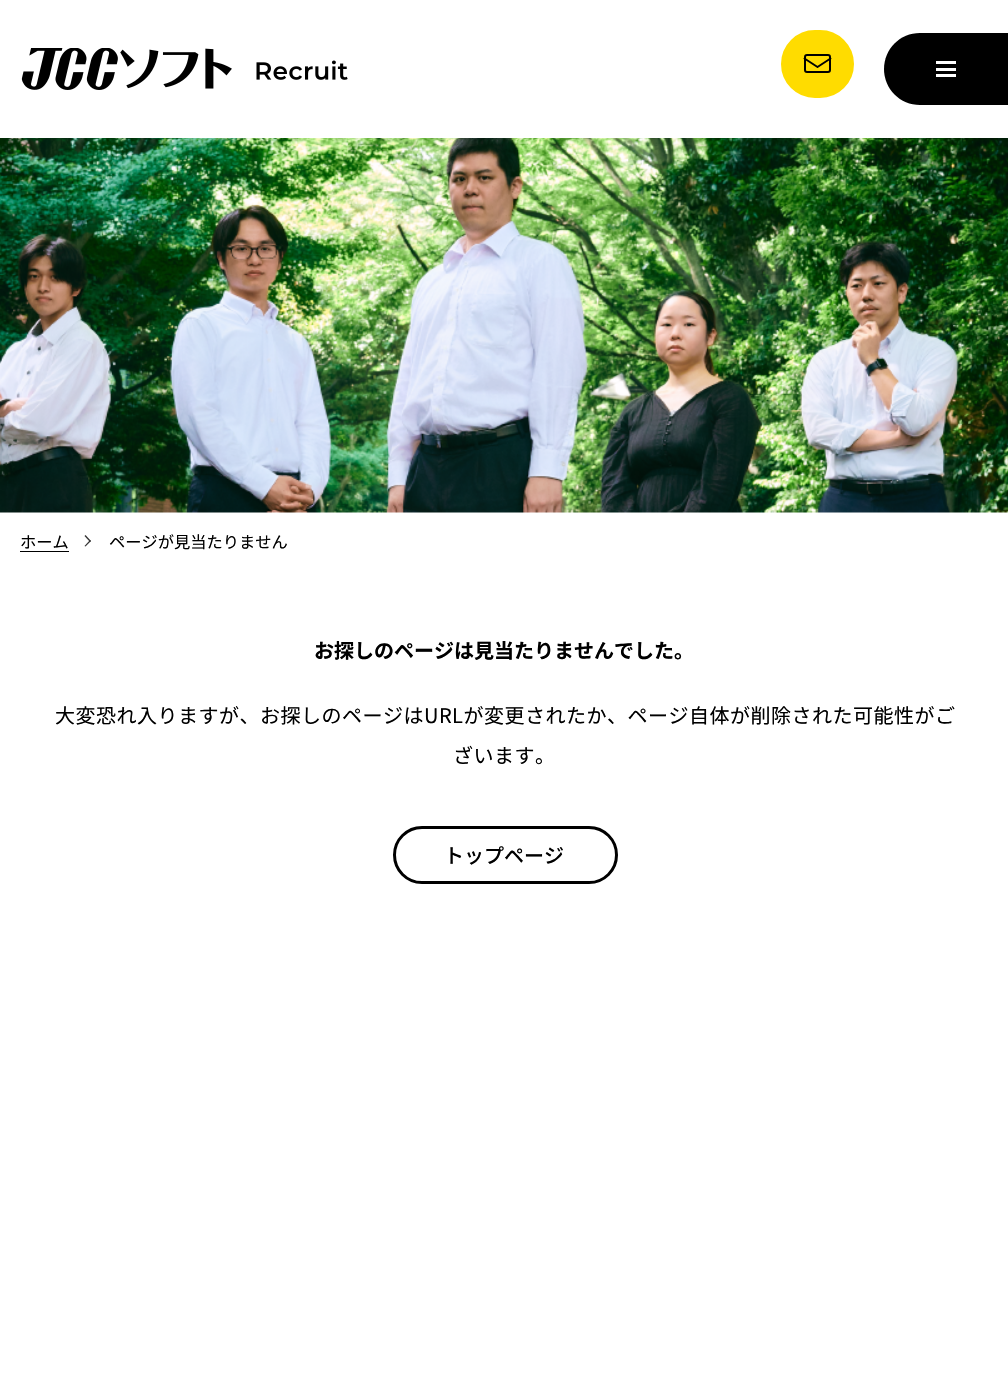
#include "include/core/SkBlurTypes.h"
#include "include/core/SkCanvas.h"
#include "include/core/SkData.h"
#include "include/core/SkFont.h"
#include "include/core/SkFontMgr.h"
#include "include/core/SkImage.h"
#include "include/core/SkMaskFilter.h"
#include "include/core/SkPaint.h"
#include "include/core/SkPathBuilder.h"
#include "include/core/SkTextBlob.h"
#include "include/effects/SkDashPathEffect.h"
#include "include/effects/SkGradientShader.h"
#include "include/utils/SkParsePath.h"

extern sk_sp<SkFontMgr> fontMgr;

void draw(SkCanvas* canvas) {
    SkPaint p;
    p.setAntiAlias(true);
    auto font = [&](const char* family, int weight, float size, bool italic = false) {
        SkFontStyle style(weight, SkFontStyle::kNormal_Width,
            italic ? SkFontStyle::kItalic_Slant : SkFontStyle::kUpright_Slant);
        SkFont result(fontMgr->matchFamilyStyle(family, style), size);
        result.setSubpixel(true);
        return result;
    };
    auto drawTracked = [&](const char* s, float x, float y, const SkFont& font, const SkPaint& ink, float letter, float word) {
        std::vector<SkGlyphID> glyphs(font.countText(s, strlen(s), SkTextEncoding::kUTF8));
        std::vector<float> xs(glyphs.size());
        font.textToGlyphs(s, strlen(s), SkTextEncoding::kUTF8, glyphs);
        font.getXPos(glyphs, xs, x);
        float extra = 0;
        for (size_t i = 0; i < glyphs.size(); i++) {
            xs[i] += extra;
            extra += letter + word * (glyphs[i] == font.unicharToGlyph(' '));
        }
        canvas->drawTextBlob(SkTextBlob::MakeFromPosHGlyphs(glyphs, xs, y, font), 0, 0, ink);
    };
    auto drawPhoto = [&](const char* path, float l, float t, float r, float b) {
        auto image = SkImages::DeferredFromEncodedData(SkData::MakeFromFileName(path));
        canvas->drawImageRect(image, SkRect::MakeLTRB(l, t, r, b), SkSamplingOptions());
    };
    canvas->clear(0xFFFFFFFF);
    drawPhoto("media/1.png", 21, 48, 348, 90);
    p.setColor(0xFFFFDC00);
    canvas->drawRoundRect(SkRect::MakeLTRB(782.5f, 31.5f, 852.5f, 96.5f), 32.5f, 32.5f, p);
    p.setStyle(SkPaint::kStroke_Style);
    p.setStrokeWidth(3);
    canvas->drawRoundRect(SkRect::MakeLTRB(782.5f, 31.5f, 852.5f, 96.5f), 32.5f, 32.5f, p);
    p.setStrokeWidth(2);
    p.setColor(0xFF000000);
    canvas->drawRoundRect(SkRect::MakeLTRB(805, 55, 830, 72), 2, 2, p);
    p.setStrokeWidth(1.9f);
    p.setStrokeCap(SkPaint::kRound_Cap);
    p.setStrokeJoin(SkPaint::kRound_Join);
    canvas->drawPath(SkPathBuilder().moveTo(804.5f, 58.5f).lineTo(817.5f, 67).lineTo(830.5f, 58.5f).detach(), p);
    p.setStyle(SkPaint::kFill_Style);
    canvas->drawPath(SkPathBuilder().moveTo(920, 33).lineTo(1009, 33).lineTo(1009, 105).lineTo(920, 105).cubicTo(900, 105, 884, 89, 884, 69).cubicTo(884, 49, 900, 33, 920, 33).close().detach(), p);
    {
        const struct { float l, t, r, b; SkColor color; } items[] = {
            {936, 61, 956, 64, 0xFFFFFFFF},
            {936, 68, 956, 71, 0xFFFFFFFF},
            {936, 74, 956, 77, 0xFFFFFFFF},
        };
        for (auto [l, t, r, b, color] : items) {
            p.setColor(color);
            canvas->drawRect(SkRect::MakeLTRB(l, t, r, b), p);
        }
    }
    drawPhoto("media/2.png", 0, 138, 1008, 513);
    auto font1 = font("Noto Sans JP", 400, 16.25f);
    p.setColor(0xFF000000);
    canvas->drawString("ホーム", 20, 548, font1, p);
    canvas->drawRect(SkRect::MakeLTRB(20, 551, 69, 552), p);
    p.setColor(0xFF333333);
    canvas->drawPath(SkPathBuilder().moveTo(85.5f, 535).lineTo(91, 541).lineTo(90, 542).lineTo(84.5f, 536).close().detach(), p);
    canvas->drawPath(SkPathBuilder().moveTo(90, 540).lineTo(91, 541).lineTo(85.5f, 546.5f).lineTo(84.5f, 546).close().detach(), p);
    p.setColor(0xFF000000);
    canvas->drawString("ページが見当たりません", 109, 548, font1, p);
    auto font2 = font("Noto Sans JP", 700, 20);
    canvas->drawString("お探しのページは見当たりませんでした。", 314, 658, font2, p);
    auto font3 = font("Noto Sans JP", 400, 20);
    drawTracked("大変恐れ入りますが、お探しのページはURLが変更されたか、ページ自体が削除された可能性がご", 55, 723, font3, p, 0.5f, 0);
    drawTracked("ざいます。", 453, 763, font3, p, 0.5f, 0);
    p.setStyle(SkPaint::kStroke_Style);
    p.setStrokeWidth(3);
    p.setStrokeCap(SkPaint::kButt_Cap);
    p.setStrokeJoin(SkPaint::kMiter_Join);
    canvas->drawRoundRect(SkRect::MakeLTRB(394.5f, 827.5f, 616.5f, 882.5f), 27.5f, 27.5f, p);
    auto font4 = font("Noto Sans JP", 500, 20);
    p.setStyle(SkPaint::kFill_Style);
    canvas->drawString("トップページ", 444, 863, font4, p);
}
